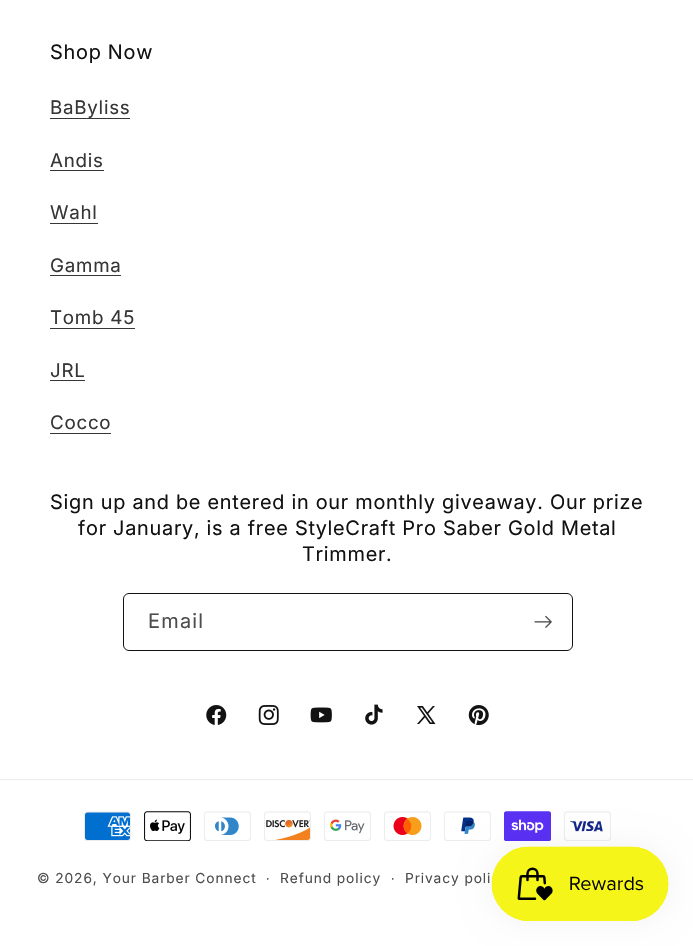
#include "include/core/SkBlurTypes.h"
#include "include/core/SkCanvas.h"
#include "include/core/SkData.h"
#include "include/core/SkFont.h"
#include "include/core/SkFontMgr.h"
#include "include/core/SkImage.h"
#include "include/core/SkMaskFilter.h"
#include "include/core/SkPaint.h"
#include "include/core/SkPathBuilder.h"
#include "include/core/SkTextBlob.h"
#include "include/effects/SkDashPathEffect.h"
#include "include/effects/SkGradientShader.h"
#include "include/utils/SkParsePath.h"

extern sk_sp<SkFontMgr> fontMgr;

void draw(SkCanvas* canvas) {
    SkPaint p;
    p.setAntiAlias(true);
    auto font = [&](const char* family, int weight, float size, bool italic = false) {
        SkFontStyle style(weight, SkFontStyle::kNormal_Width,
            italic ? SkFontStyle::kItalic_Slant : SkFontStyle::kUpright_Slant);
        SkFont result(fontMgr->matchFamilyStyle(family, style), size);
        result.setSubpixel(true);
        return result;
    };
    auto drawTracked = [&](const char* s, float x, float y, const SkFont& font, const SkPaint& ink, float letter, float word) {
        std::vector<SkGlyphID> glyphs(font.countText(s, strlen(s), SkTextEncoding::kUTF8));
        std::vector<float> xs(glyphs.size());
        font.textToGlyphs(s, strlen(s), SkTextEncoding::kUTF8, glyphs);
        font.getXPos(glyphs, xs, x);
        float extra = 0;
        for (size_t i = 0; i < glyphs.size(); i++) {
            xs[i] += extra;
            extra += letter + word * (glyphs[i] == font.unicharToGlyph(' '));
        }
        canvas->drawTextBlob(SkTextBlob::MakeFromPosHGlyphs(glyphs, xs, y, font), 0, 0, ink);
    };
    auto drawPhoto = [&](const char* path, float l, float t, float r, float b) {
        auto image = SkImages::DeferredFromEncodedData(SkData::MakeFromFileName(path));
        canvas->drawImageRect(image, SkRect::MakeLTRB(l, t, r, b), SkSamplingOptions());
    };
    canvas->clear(0xFFFFFFFF);
    auto font1 = font("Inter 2", 400, 20);
    p.setColor(0xFF121212);
    drawTracked("Shop Now", 50, 59, font1, p, 0.75f, 0);
    auto font2 = font("Inter", 400, 18.75f);
    p.setColor(0xFF363636);
    drawTracked("BaByliss", 50, 114, font2, p, 0.75f, 0);
    canvas->drawRect(SkRect::MakeLTRB(50, 118, 130, 119), p);
    drawTracked("Andis", 50, 167, font2, p, 0.75f, 0);
    canvas->drawRect(SkRect::MakeLTRB(50, 170, 104, 171), p);
    drawTracked("Wahl", 50, 219, font2, p, 0.75f, 0);
    canvas->drawRect(SkRect::MakeLTRB(50, 223, 98, 224), p);
    drawTracked("Gamma", 50, 272, font2, p, 0.75f, 0);
    canvas->drawRect(SkRect::MakeLTRB(50, 275, 121, 276), p);
    drawTracked("Tomb 45", 50, 324, font2, p, 0.75f, 0);
    canvas->drawRect(SkRect::MakeLTRB(50, 328, 135, 329), p);
    drawTracked("JRL", 50, 377, font2, p, 0.75f, 0);
    canvas->drawRect(SkRect::MakeLTRB(50, 380, 85, 381), p);
    drawTracked("Cocco", 50, 429, font2, p, 0.75f, 0);
    canvas->drawRect(SkRect::MakeLTRB(50, 433, 111, 434), p);
    p.setColor(0xFF121212);
    {
        const struct { const char* s; float x, y; } items[] = {
            {"Sign up and be entered in our monthly giveaway. Our prize", 50, 509},
            {"for January, is a free StyleCraft Pro Saber Gold Metal", 78, 535},
            {"Trimmer.", 302, 561},
        };
        for (auto [s, x, y] : items) {
            drawTracked(s, x, y, font1, p, 0.75f, 0);
        }
    }
    p.setStyle(SkPaint::kStroke_Style);
    p.setStrokeWidth(1);
    canvas->drawRoundRect(SkRect::MakeLTRB(123.5f, 593.5f, 572.5f, 650.5f), 5.5f, 5.5f, p);
    p.setStyle(SkPaint::kFill_Style);
    p.setColor(0xFF4D4D4D);
    drawTracked("Email", 148, 628, font1, p, 1.25f, 0);
    drawPhoto("media/1.png", 534, 615, 552, 628);
    drawPhoto("media/2.png", 206, 705, 227, 725);
    drawPhoto("media/3.png", 258, 705, 279, 725);
    drawPhoto("media/4.png", 310, 707, 332, 723);
    drawPhoto("media/5.png", 365, 704, 383, 725);
    drawPhoto("media/6.png", 417, 706, 436, 724);
    drawPhoto("media/7.png", 468, 705, 489, 726);
    p.setColor(0xFFECECEC);
    canvas->drawRect(SkRect::MakeLTRB(0, 779, 693, 780), p);
    drawPhoto("media/8.png", 84, 811, 131, 841);
    drawPhoto("media/9.png", 144, 811, 191, 841);
    drawPhoto("media/10.png", 204, 811, 251, 841);
    drawPhoto("media/11.png", 264, 811, 311, 841);
    drawPhoto("media/12.png", 324, 811, 371, 841);
    drawPhoto("media/13.png", 384, 811, 431, 841);
    drawPhoto("media/14.png", 444, 811, 491, 841);
    drawPhoto("media/15.png", 504, 811, 551, 841);
    drawPhoto("media/16.png", 564, 811, 611, 841);
    auto font3 = font("Inter", 400, 13.75f);
    p.setColor(0xFF4D4D4D);
    drawTracked("© 2026, Your Barber Connect", 37, 883, font3, p, 0.9f, 0);
    auto font4 = font("Inter", 400, 12);
    drawTracked("·", 266, 883, font4, p, 0.9f, 0);
    drawTracked("Refund policy", 280, 883, font3, p, 0.9f, 0);
    drawTracked("·", 391, 883, font4, p, 0.9f, 0);
    drawTracked("Privacy poli", 405, 883, font3, p, 0.9f, 0);
    p.setColor(0x0D000000);
    p.setMaskFilter(SkMaskFilter::MakeBlur(kNormal_SkBlurStyle, 15.5f));
    canvas->drawRoundRect(SkRect::MakeLTRB(491, 846, 669, 921), 37.5f, 37.5f, p);
    p.setMaskFilter(nullptr);
    drawPhoto("media/17.png", 491, 846, 669, 921);
}
